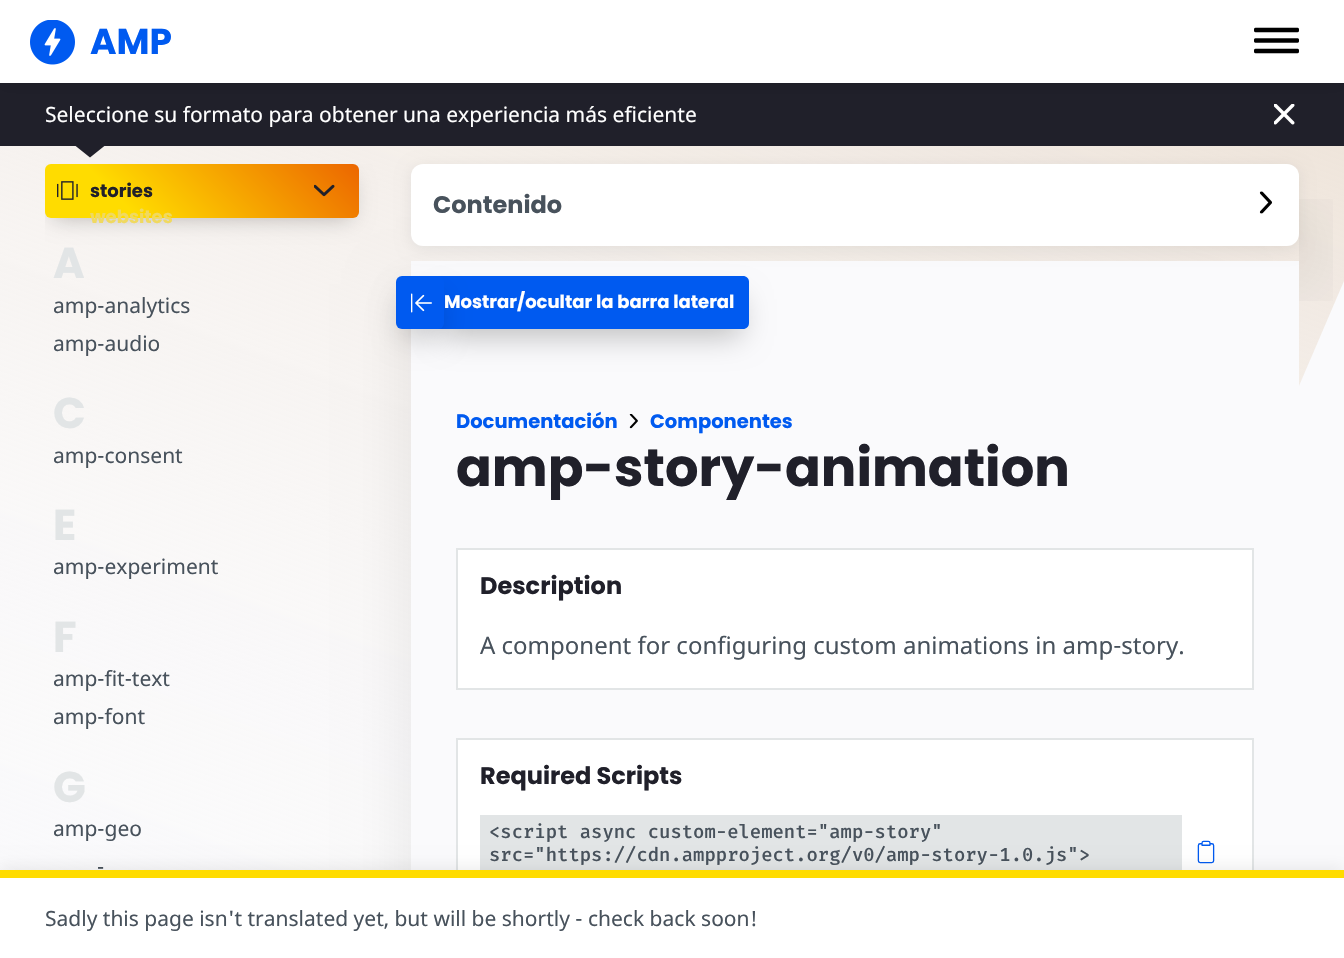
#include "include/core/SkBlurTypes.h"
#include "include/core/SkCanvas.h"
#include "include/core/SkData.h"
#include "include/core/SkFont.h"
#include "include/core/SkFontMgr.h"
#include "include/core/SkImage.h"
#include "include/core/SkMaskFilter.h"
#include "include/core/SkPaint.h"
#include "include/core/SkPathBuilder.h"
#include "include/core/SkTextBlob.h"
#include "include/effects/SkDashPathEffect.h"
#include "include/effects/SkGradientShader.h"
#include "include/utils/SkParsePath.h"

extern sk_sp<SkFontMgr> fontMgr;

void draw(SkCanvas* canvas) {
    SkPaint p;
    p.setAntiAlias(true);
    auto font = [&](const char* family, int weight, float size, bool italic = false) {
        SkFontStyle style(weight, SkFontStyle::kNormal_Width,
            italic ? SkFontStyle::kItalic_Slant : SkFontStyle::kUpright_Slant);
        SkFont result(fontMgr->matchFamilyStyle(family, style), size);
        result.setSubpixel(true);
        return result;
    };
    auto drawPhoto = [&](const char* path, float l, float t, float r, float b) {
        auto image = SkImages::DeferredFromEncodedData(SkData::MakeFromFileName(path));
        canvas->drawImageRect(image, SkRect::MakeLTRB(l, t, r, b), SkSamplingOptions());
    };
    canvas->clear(0xFFFAFAFC);
    drawPhoto("media/1.png", 0, 146, 1344, 870);
    canvas->save();
    canvas->clipRect(SkRect::MakeLTRB(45, 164, 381, 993));
    p.setColor(0x40000000);
    p.setMaskFilter(SkMaskFilter::MakeBlur(kNormal_SkBlurStyle, 11));
    canvas->drawRect(SkRect::MakeLTRB(53, 179, 351, 218), p);
    p.setMaskFilter(nullptr);
    canvas->restore();
    canvas->save();
    canvas->clipRect(SkRect::MakeLTRB(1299, 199, 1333, 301));
    p.setColor(0x0D000000);
    p.setMaskFilter(SkMaskFilter::MakeBlur(kNormal_SkBlurStyle, 30));
    canvas->drawRect(SkRect::MakeLTRB(441, 201, 1329, 299), p);
    p.setMaskFilter(nullptr);
    canvas->restore();
    {
        const SkColor colors[] = {0xFFEC6600, 0xFFFFDC00};
        const float stops[] = {0, 0.75f};
        const SkPoint ends[] = {{294, 99}, {110, 282}};
        p.setShader(SkGradientShader::MakeLinear(ends, colors, stops, 2, SkTileMode::kClamp));
        p.setAlpha(255);
    }
    canvas->drawRoundRect(SkRect::MakeLTRB(45, 164, 359, 218), 6, 6, p);
    p.setShader(nullptr);
    p.setColor(0x0D000000);
    p.setMaskFilter(SkMaskFilter::MakeBlur(kNormal_SkBlurStyle, 22.5f));
    canvas->drawRect(SkRect::MakeLTRB(396, 284, 1224, 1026), p);
    p.setMaskFilter(nullptr);
    p.setColor(0xFFFAFAFC);
    canvas->drawRect(SkRect::MakeLTRB(411, 261, 1299, 870), p);
    p.setColor(0x12000000);
    p.setMaskFilter(SkMaskFilter::MakeBlur(kNormal_SkBlurStyle, 7.5f));
    canvas->drawRoundRect(SkRect::MakeLTRB(411, 167, 1299, 249), 12, 12, p);
    p.setMaskFilter(nullptr);
    p.setColor(0xFF20202A);
    canvas->drawRect(SkRect::MakeLTRB(0, 83, 1344, 146), p);
    drawPhoto("media/4.png", 1274, 104, 1295, 125);
    p.setColor(0x12000000);
    p.setMaskFilter(SkMaskFilter::MakeBlur(kNormal_SkBlurStyle, 7.5f));
    canvas->drawRect(SkRect::MakeLTRB(0, 3, 1344, 86), p);
    p.setMaskFilter(nullptr);
    p.setColor(0xFFFFFFFF);
    canvas->drawRect(SkRect::MakeLTRB(0, 0, 1344, 83), p);
    drawPhoto("media/2.png", 30, 20, 75, 65);
    auto font1 = font("Poppins", 700, 36);
    p.setColor(0xFF005AF0);
    canvas->drawString("AMP", 90, 54, font1, p);
    drawPhoto("media/3.png", 1254, 27, 1299, 54);
    auto font2 = font("Noto Sans", 400, 21);
    p.setColor(0xFFFFFFFF);
    canvas->drawString("Seleccione su formato para obtener una experiencia más eficiente", 45, 122, font2, p);
    p.setColor(0xFF20202A);
    canvas->drawPath(SkPathBuilder().moveTo(75, 145.5f).lineTo(105, 145.5f).lineTo(90, 157.5f).close().detach(), p);
    drawPhoto("media/5.png", 57, 181, 78, 200);
    auto font3 = font("Poppins", 700, 18);
    canvas->drawString("stories", 90, 197, font3, p);
    drawPhoto("media/6.png", 314, 184, 335, 197);
    p.setColor(0xFFF0D960);
    canvas->drawString("websites", 90, 223, font3, p);
    auto font4 = font("Poppins", 700, 43);
    p.setColor(0xFFE2E5E6);
    canvas->drawString("A", 53, 278, font4, p);
    p.setColor(0xFF48525C);
    canvas->drawString("amp-analytics", 53, 313, font2, p);
    canvas->drawString("amp-audio", 53, 351, font2, p);
    p.setColor(0xFFE2E5E6);
    canvas->drawString("C", 53, 428, font4, p);
    p.setColor(0xFF48525C);
    canvas->drawString("amp-consent", 53, 463, font2, p);
    p.setColor(0xFFE2E5E6);
    canvas->drawString("E", 53, 540, font4, p);
    p.setColor(0xFF48525C);
    canvas->drawString("amp-experiment", 53, 574, font2, p);
    p.setColor(0xFFE2E5E6);
    canvas->drawString("F", 53, 652, font4, p);
    p.setColor(0xFF48525C);
    canvas->drawString("amp-fit-text", 53, 686, font2, p);
    canvas->drawString("amp-font", 53, 724, font2, p);
    p.setColor(0xFFE2E5E6);
    canvas->drawString("G", 53, 802, font4, p);
    p.setColor(0xFF48525C);
    canvas->drawString("amp-geo", 53, 836, font2, p);
    canvas->drawString("-", 97, 874, font2, p);
    p.setColor(0xFFFFFFFF);
    canvas->drawRoundRect(SkRect::MakeLTRB(411, 164, 1299, 246), 12, 12, p);
    auto font5 = font("Poppins", 700, 24);
    p.setColor(0xFF48525C);
    canvas->drawString("Contenido", 433, 213, font5, p);
    drawPhoto("media/7.png", 1259, 191, 1272, 214);
    p.setColor(0x40000000);
    p.setMaskFilter(SkMaskFilter::MakeBlur(kNormal_SkBlurStyle, 15));
    canvas->drawRect(SkRect::MakeLTRB(444, 299, 741, 336), p);
    p.setMaskFilter(nullptr);
    p.setColor(0xFF005AF0);
    canvas->drawPath(SkPathBuilder().moveTo(437, 276).lineTo(743, 276).cubicTo(746.5f, 276, 749, 278.5f, 749, 282).lineTo(749, 323).cubicTo(749, 326.5f, 746.5f, 329, 743, 329).lineTo(437, 329).close().detach(), p);
    p.setColor(0x40000000);
    p.setMaskFilter(SkMaskFilter::MakeBlur(kNormal_SkBlurStyle, 15));
    canvas->drawRect(SkRect::MakeLTRB(404, 299, 437, 336), p);
    p.setMaskFilter(nullptr);
    p.setColor(0xFF005AF0);
    canvas->drawRoundRect(SkRect::MakeLTRB(396, 276, 444, 329), 6, 6, p);
    drawPhoto("media/8.png", 411, 293, 432, 313);
    p.setColor(0xFFFFFFFF);
    canvas->drawString("Mostrar/ocultar la barra lateral", 444, 308, font3, p);
    auto font6 = font("Poppins", 700, 19.5f);
    p.setColor(0xFF005AF0);
    canvas->drawString("Documentación", 456, 428, font6, p);
    drawPhoto("media/9.png", 629, 414, 638, 429);
    canvas->drawString("Componentes", 650, 428, font6, p);
    auto font7 = font("Poppins", 700, 52.75f);
    p.setColor(0xFF20202A);
    canvas->drawString("amp-story-animation", 456, 486, font7, p);
    p.setColor(0xFFFFFFFF);
    canvas->drawRect(SkRect::MakeLTRB(457, 549, 1253, 689), p);
    p.setStyle(SkPaint::kStroke_Style);
    p.setStrokeWidth(2);
    p.setColor(0xFFE2E5E6);
    canvas->drawRect(SkRect::MakeLTRB(457, 549, 1253, 689), p);
    p.setStyle(SkPaint::kFill_Style);
    p.setColor(0xFF20202A);
    canvas->drawString("Description", 480, 594, font5, p);
    auto font8 = font("Noto Sans", 400, 24);
    p.setColor(0xFF48525C);
    canvas->drawString("A component for configuring custom animations in amp-story.", 480, 654, font8, p);
    p.setColor(0xFFFFFFFF);
    canvas->drawRect(SkRect::MakeLTRB(458, 740, 1252, 870), p);
    p.setStyle(SkPaint::kStroke_Style);
    p.setColor(0xFFE2E5E6);
    canvas->drawRect(SkRect::MakeLTRB(457, 739, 1253, 926), p);
    p.setStyle(SkPaint::kFill_Style);
    p.setColor(0xFF20202A);
    canvas->drawString("Required Scripts", 480, 784, font5, p);
    p.setColor(0xFFE2E5E6);
    canvas->drawRect(SkRect::MakeLTRB(480, 815, 1182, 870), p);
    auto font9 = font("Fira Mono", 500, 18.9f);
    p.setColor(0xFF48525C);
    canvas->drawString("<script async custom-element=\"amp-story\"", 489, 838, font9, p);
    canvas->drawString("src=\"https://cdn.ampproject.org/v0/amp-story-1.0.js\">", 489, 861, font9, p);
    drawPhoto("media/10.png", 1197, 840, 1215, 864);
    p.setColor(0x12000000);
    p.setMaskFilter(SkMaskFilter::MakeBlur(kNormal_SkBlurStyle, 7.5f));
    canvas->drawRect(SkRect::MakeLTRB(0, 867, 1344, 956), p);
    p.setMaskFilter(nullptr);
    p.setColor(0xFFFFFFFF);
    canvas->drawRect(SkRect::MakeLTRB(0, 878, 1344, 958), p);
    p.setColor(0xFFFFDC00);
    canvas->drawRect(SkRect::MakeLTRB(0, 870, 1344, 878), p);
    p.setColor(0xFF48525C);
    canvas->drawString("Sadly this page isn't translated yet, but will be shortly - check back soon!", 45, 926, font2, p);
}
